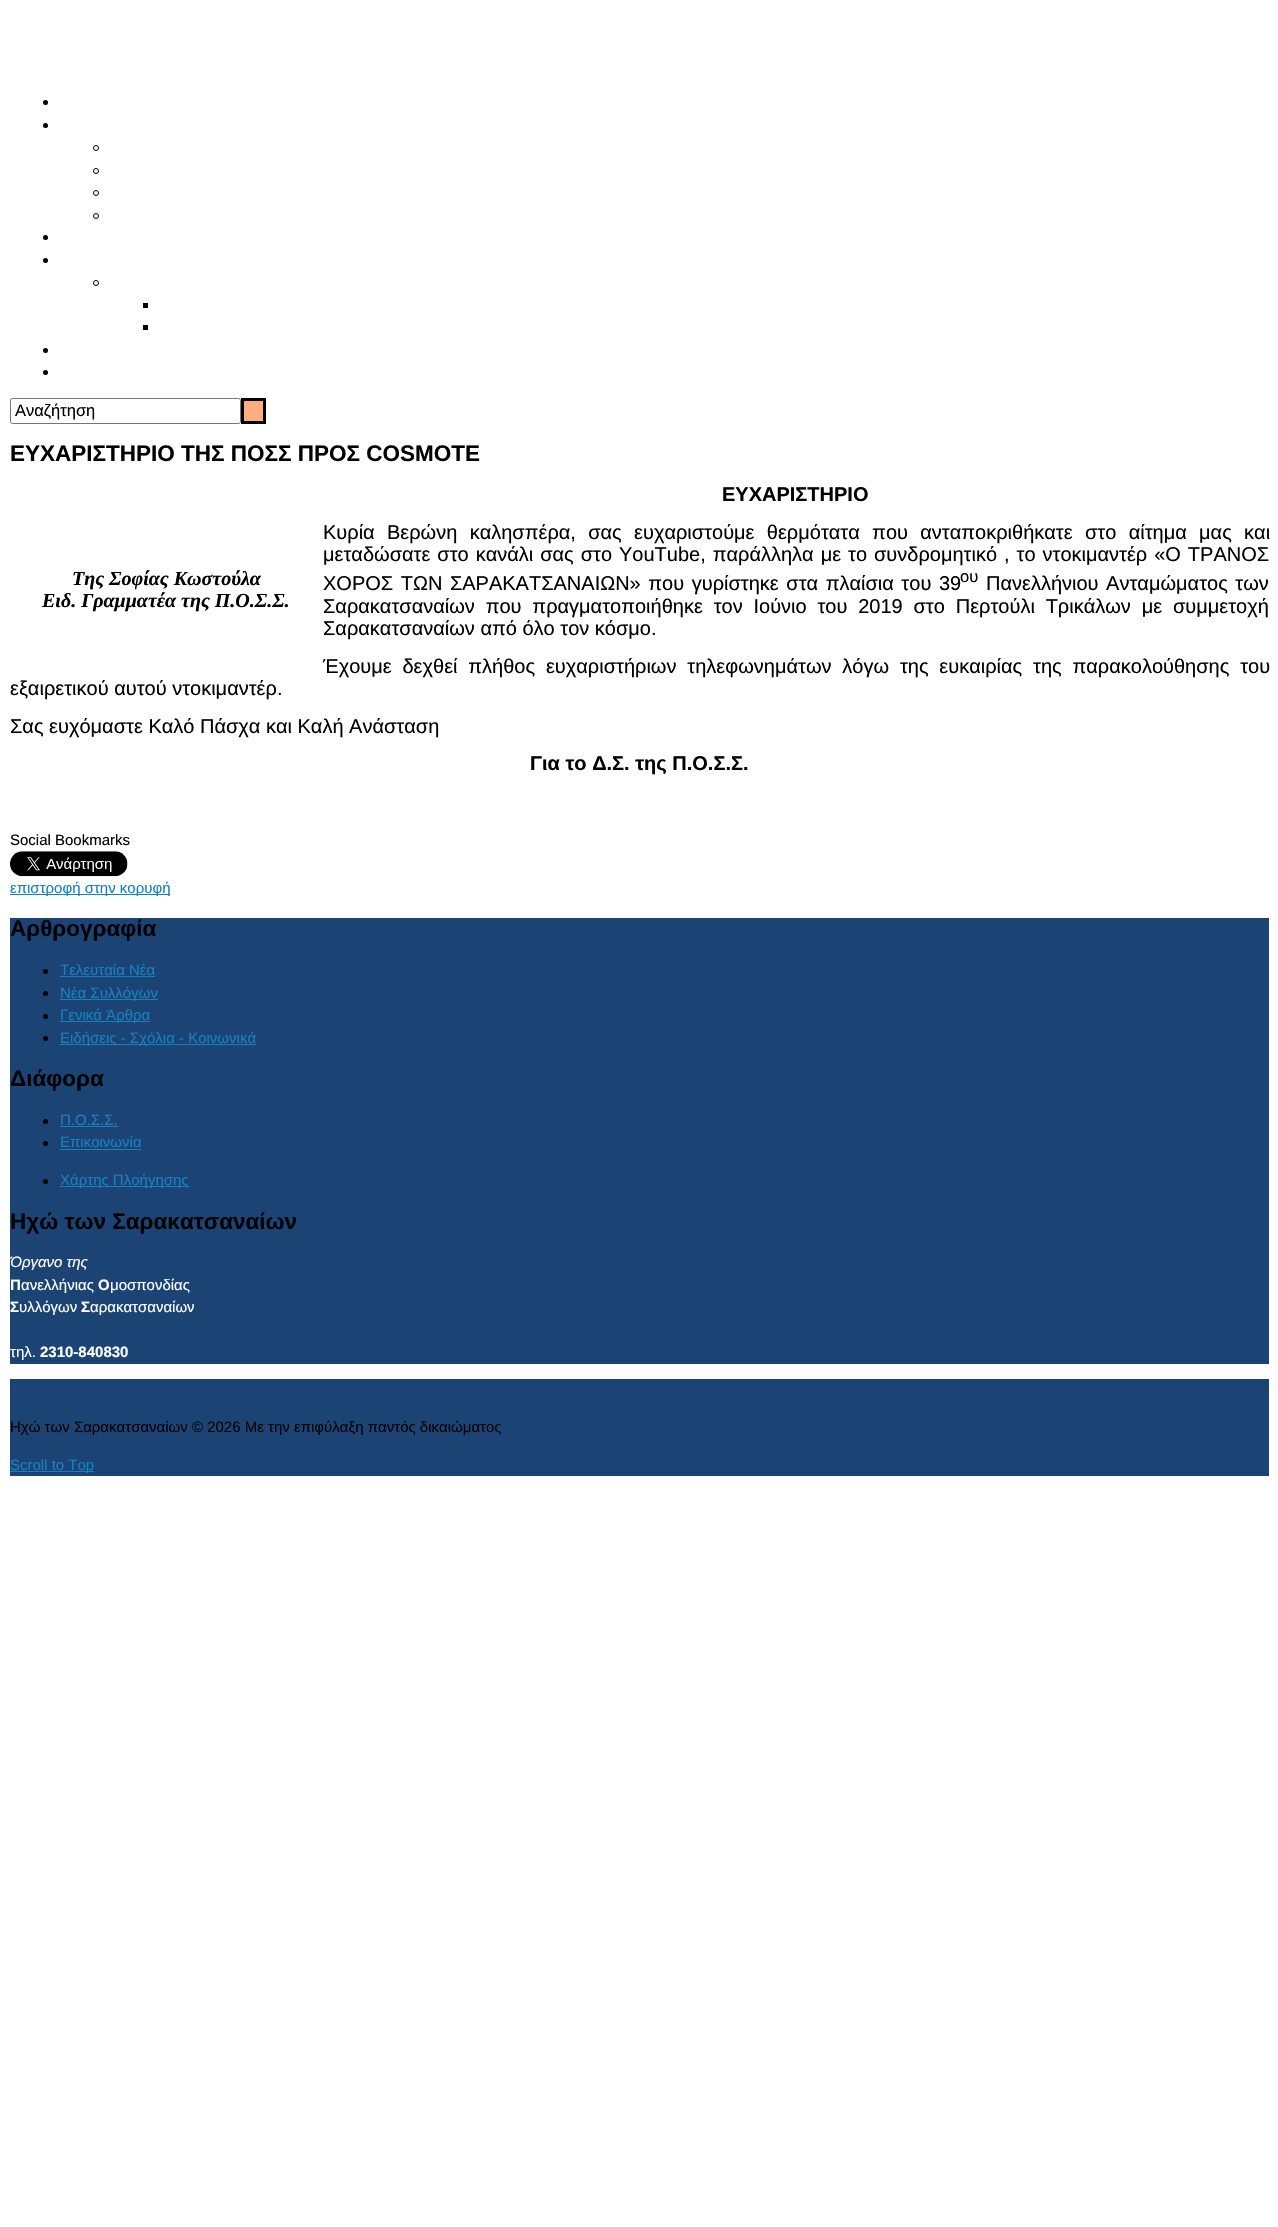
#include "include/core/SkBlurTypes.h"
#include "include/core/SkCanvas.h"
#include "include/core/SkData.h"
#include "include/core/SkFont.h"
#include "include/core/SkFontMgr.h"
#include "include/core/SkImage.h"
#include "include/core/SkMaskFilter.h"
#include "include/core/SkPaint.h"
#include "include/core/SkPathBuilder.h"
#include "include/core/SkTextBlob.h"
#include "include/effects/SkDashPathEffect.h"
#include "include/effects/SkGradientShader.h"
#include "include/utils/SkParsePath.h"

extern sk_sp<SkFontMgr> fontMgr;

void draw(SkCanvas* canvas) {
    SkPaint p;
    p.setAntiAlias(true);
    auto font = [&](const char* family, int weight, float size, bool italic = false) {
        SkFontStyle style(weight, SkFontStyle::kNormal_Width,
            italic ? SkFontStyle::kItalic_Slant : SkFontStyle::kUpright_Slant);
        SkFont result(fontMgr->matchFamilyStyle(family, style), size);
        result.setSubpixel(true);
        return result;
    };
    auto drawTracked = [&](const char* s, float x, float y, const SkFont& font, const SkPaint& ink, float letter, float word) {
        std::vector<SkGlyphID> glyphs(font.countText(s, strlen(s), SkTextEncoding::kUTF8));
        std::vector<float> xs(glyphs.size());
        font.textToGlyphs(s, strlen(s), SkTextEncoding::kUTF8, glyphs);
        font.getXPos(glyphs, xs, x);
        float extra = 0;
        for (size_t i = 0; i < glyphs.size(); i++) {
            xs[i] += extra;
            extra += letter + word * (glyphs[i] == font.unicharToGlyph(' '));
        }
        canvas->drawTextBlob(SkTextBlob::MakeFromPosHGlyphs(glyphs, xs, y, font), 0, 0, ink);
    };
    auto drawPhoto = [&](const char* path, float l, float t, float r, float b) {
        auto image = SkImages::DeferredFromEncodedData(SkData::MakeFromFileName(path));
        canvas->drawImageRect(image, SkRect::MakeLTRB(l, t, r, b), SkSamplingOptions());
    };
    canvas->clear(0xFFFFFFFF);
    p.setColor(0xFF000000);
    canvas->drawCircle(45.5f, 102.5f, 2.5f, p);
    canvas->drawCircle(45.5f, 125.5f, 2.5f, p);
    p.setStyle(SkPaint::kStroke_Style);
    p.setStrokeWidth(1);
    canvas->drawCircle(96, 148, 2.5f, p);
    canvas->drawCircle(96, 171, 2.5f, p);
    canvas->drawCircle(96, 193, 2.5f, p);
    canvas->drawCircle(96, 216, 2.5f, p);
    p.setStyle(SkPaint::kFill_Style);
    canvas->drawCircle(45.5f, 237.5f, 2.5f, p);
    canvas->drawCircle(45.5f, 260.5f, 2.5f, p);
    p.setStyle(SkPaint::kStroke_Style);
    canvas->drawCircle(96, 283, 2.5f, p);
    p.setStyle(SkPaint::kFill_Style);
    canvas->drawRect(SkRect::MakeLTRB(143, 303, 148, 308), p);
    canvas->drawRect(SkRect::MakeLTRB(143, 325, 148, 330), p);
    canvas->drawCircle(45.5f, 350.5f, 2.5f, p);
    canvas->drawCircle(45.5f, 372.5f, 2.5f, p);
    p.setStyle(SkPaint::kStroke_Style);
    p.setColor(0xFF767676);
    canvas->drawRoundRect(SkRect::MakeLTRB(10.5f, 398.5f, 240.5f, 423.5f), 2, 2, p);
    auto font1 = font("Liberation Sans", 400, 16.5f);
    p.setStyle(SkPaint::kFill_Style);
    p.setColor(0xFF000000);
    canvas->drawString("Αναζήτηση", 15, 416, font1, p);
    p.setColor(0xFFFCAE7E);
    canvas->drawRect(SkRect::MakeLTRB(242.5f, 399.5f, 264.5f, 422.5f), p);
    p.setStyle(SkPaint::kStroke_Style);
    p.setStrokeWidth(3);
    p.setColor(0xFF000000);
    canvas->drawRect(SkRect::MakeLTRB(242.5f, 399.5f, 264.5f, 422.5f), p);
    auto font2 = font("Liberation Sans", 700, 22.5f);
    p.setStyle(SkPaint::kFill_Style);
    canvas->drawString("ΕΥΧΑΡΙΣΤΗΡΙΟ ΤΗΣ ΠΟΣΣ ΠΡΟΣ COSMOTE", 10, 461, font2, p);
    auto font3 = font("Liberation Sans", 700, 20);
    canvas->drawString("ΕΥΧΑΡΙΣΤΗΡΙΟ", 722, 501, font3, p);
    auto font4 = font("Liberation Serif", 700, 20, true);
    canvas->drawString("Της Σοφίας Κωστούλα", 72, 585, font4, p);
    canvas->drawString("Ειδ. Γραμματέα της Π.Ο.Σ.Σ.", 42, 607, font4, p);
    auto font5 = font("Liberation Sans", 400, 20);
    drawTracked("Κυρία Βερώνη καλησπέρα, σας ευχαριστούμε θερμότατα που ανταποκριθήκατε στο αίτημα μας και", 323, 539, font5, p, 0, 6.75f);
    drawTracked("μεταδώσατε στο κανάλι σας στο YouTube, παράλληλα με το συνδρομητικό , το ντοκιμαντέρ «Ο ΤΡΑΝΟΣ", 323, 561, font5, p, 0, 1.4f);
    drawTracked("ΧΟΡΟΣ ΤΩΝ ΣΑΡΑΚΑΤΣΑΝΑΙΩΝ» που γυρίστηκε στα πλαίσια του 39", 323, 590, font5, p, 0, 2);
    canvas->drawString("ου", 960, 582, font1, p);
    drawTracked("Πανελλήνιου Ανταμώματος των", 986, 590, font5, p, 0, 2);
    drawTracked("Σαρακατσαναίων που πραγματοποιήθηκε τον Ιούνιο του 2019 στο Περτούλι Τρικάλων με συμμετοχή", 323, 613, font5, p, 0, 5.25f);
    canvas->drawString("Σαρακατσαναίων από όλο τον κόσμο.", 323, 635, font5, p);
    drawTracked("Έχουμε δεχθεί πλήθος ευχαριστήριων τηλεφωνημάτων λόγω της ευκαιρίας της παρακολούθησης του", 323, 673, font5, p, 0, 5.25f);
    canvas->drawString("εξαιρετικού αυτού ντοκιμαντέρ.", 10, 695, font5, p);
    canvas->drawString("Σας ευχόμαστε Καλό Πάσχα και Καλή Ανάσταση", 10, 733, font5, p);
    canvas->drawString("Για το Δ.Σ. της Π.Ο.Σ.Σ.", 530, 770, font3, p);
    auto font6 = font("Liberation Sans", 400, 15);
    canvas->drawString("Social Bookmarks", 10, 845, font6, p);
    drawPhoto("media/1.png", 10, 851, 128, 877);
    p.setColor(0xFF1781BF);
    canvas->drawRect(SkRect::MakeLTRB(10, 894, 170, 895), p);
    canvas->drawString("επιστροφή στην κορυφή", 10, 893, font6, p);
    p.setColor(0xFF1B4475);
    canvas->drawRect(SkRect::MakeLTRB(10, 918, 1269, 1364), p);
    p.setColor(0xFF000000);
    canvas->drawString("Αρθρογραφία", 10, 936, font2, p);
    canvas->drawCircle(45.5f, 971.5f, 2.5f, p);
    p.setColor(0xFF1781BF);
    canvas->drawString("Τελευταία Νέα", 60, 975, font6, p);
    canvas->drawRect(SkRect::MakeLTRB(60, 976, 155, 977), p);
    p.setColor(0xFF000000);
    canvas->drawCircle(45.5f, 993.5f, 2.5f, p);
    p.setColor(0xFF1781BF);
    canvas->drawRect(SkRect::MakeLTRB(60, 999, 158, 1000), p);
    canvas->drawString("Νέα Συλλόγων", 60, 998, font6, p);
    p.setColor(0xFF000000);
    canvas->drawCircle(45.5f, 1016.5f, 2.5f, p);
    p.setColor(0xFF1781BF);
    canvas->drawRect(SkRect::MakeLTRB(60, 1021, 150, 1022), p);
    canvas->drawString("Γενικά Άρθρα", 60, 1020, font6, p);
    p.setColor(0xFF000000);
    canvas->drawCircle(45.5f, 1038.5f, 2.5f, p);
    p.setColor(0xFF1781BF);
    canvas->drawRect(SkRect::MakeLTRB(60, 1044, 256, 1045), p);
    canvas->drawString("Ειδήσεις - Σχόλια - Κοινωνικά", 60, 1043, font6, p);
    p.setColor(0xFF000000);
    canvas->drawString("Διάφορα", 10, 1086, font2, p);
    canvas->drawCircle(45.5f, 1121.5f, 2.5f, p);
    p.setColor(0xFF1781BF);
    canvas->drawString("Π.Ο.Σ.Σ.", 60, 1125, font6, p);
    canvas->drawRect(SkRect::MakeLTRB(60, 1126, 118, 1127), p);
    p.setColor(0xFF000000);
    canvas->drawCircle(45.5f, 1143.5f, 2.5f, p);
    p.setColor(0xFF1781BF);
    canvas->drawString("Επικοινωνία", 60, 1147, font6, p);
    canvas->drawRect(SkRect::MakeLTRB(60, 1149, 141, 1150), p);
    p.setColor(0xFF000000);
    canvas->drawCircle(45.5f, 1181.5f, 2.5f, p);
    p.setColor(0xFF1781BF);
    canvas->drawRect(SkRect::MakeLTRB(60, 1186, 189, 1187), p);
    canvas->drawString("Χάρτης Πλοήγησης", 60, 1185, font6, p);
    p.setColor(0xFF000000);
    canvas->drawString("Ηχώ των Σαρακατσαναίων", 10, 1229, font2, p);
    auto font7 = font("Liberation Sans", 400, 15, true);
    p.setColor(0xFFFFFFFF);
    canvas->drawString("Όργανο της", 10, 1267, font7, p);
    auto font8 = font("Liberation Sans", 700, 15);
    canvas->drawString("Π", 10, 1290, font8, p);
    canvas->drawString("ανελλήνιας", 21, 1290, font6, p);
    canvas->drawString("Ο", 98, 1290, font8, p);
    canvas->drawString("μοσπονδίας", 110, 1290, font6, p);
    canvas->drawString("Σ", 10, 1312, font8, p);
    canvas->drawString("υλλόγων", 19, 1312, font6, p);
    canvas->drawString("Σ", 81, 1312, font8, p);
    canvas->drawString("αρακατσαναίων", 90, 1312, font6, p);
    canvas->drawString("τηλ.", 10, 1357, font6, p);
    canvas->drawString("2310-840830", 40, 1357, font8, p);
    p.setColor(0xFF1B4475);
    canvas->drawRect(SkRect::MakeLTRB(10, 1379, 1269, 1476), p);
    p.setColor(0xFF000000);
    canvas->drawString("Ηχώ των Σαρακατσαναίων © 2026 Με την επιφύλαξη παντός δικαιώματος", 10, 1432, font6, p);
    p.setColor(0xFF1781BF);
    canvas->drawRect(SkRect::MakeLTRB(10, 1471, 94, 1472), p);
    canvas->drawString("Scroll to Top", 10, 1470, font6, p);
}
